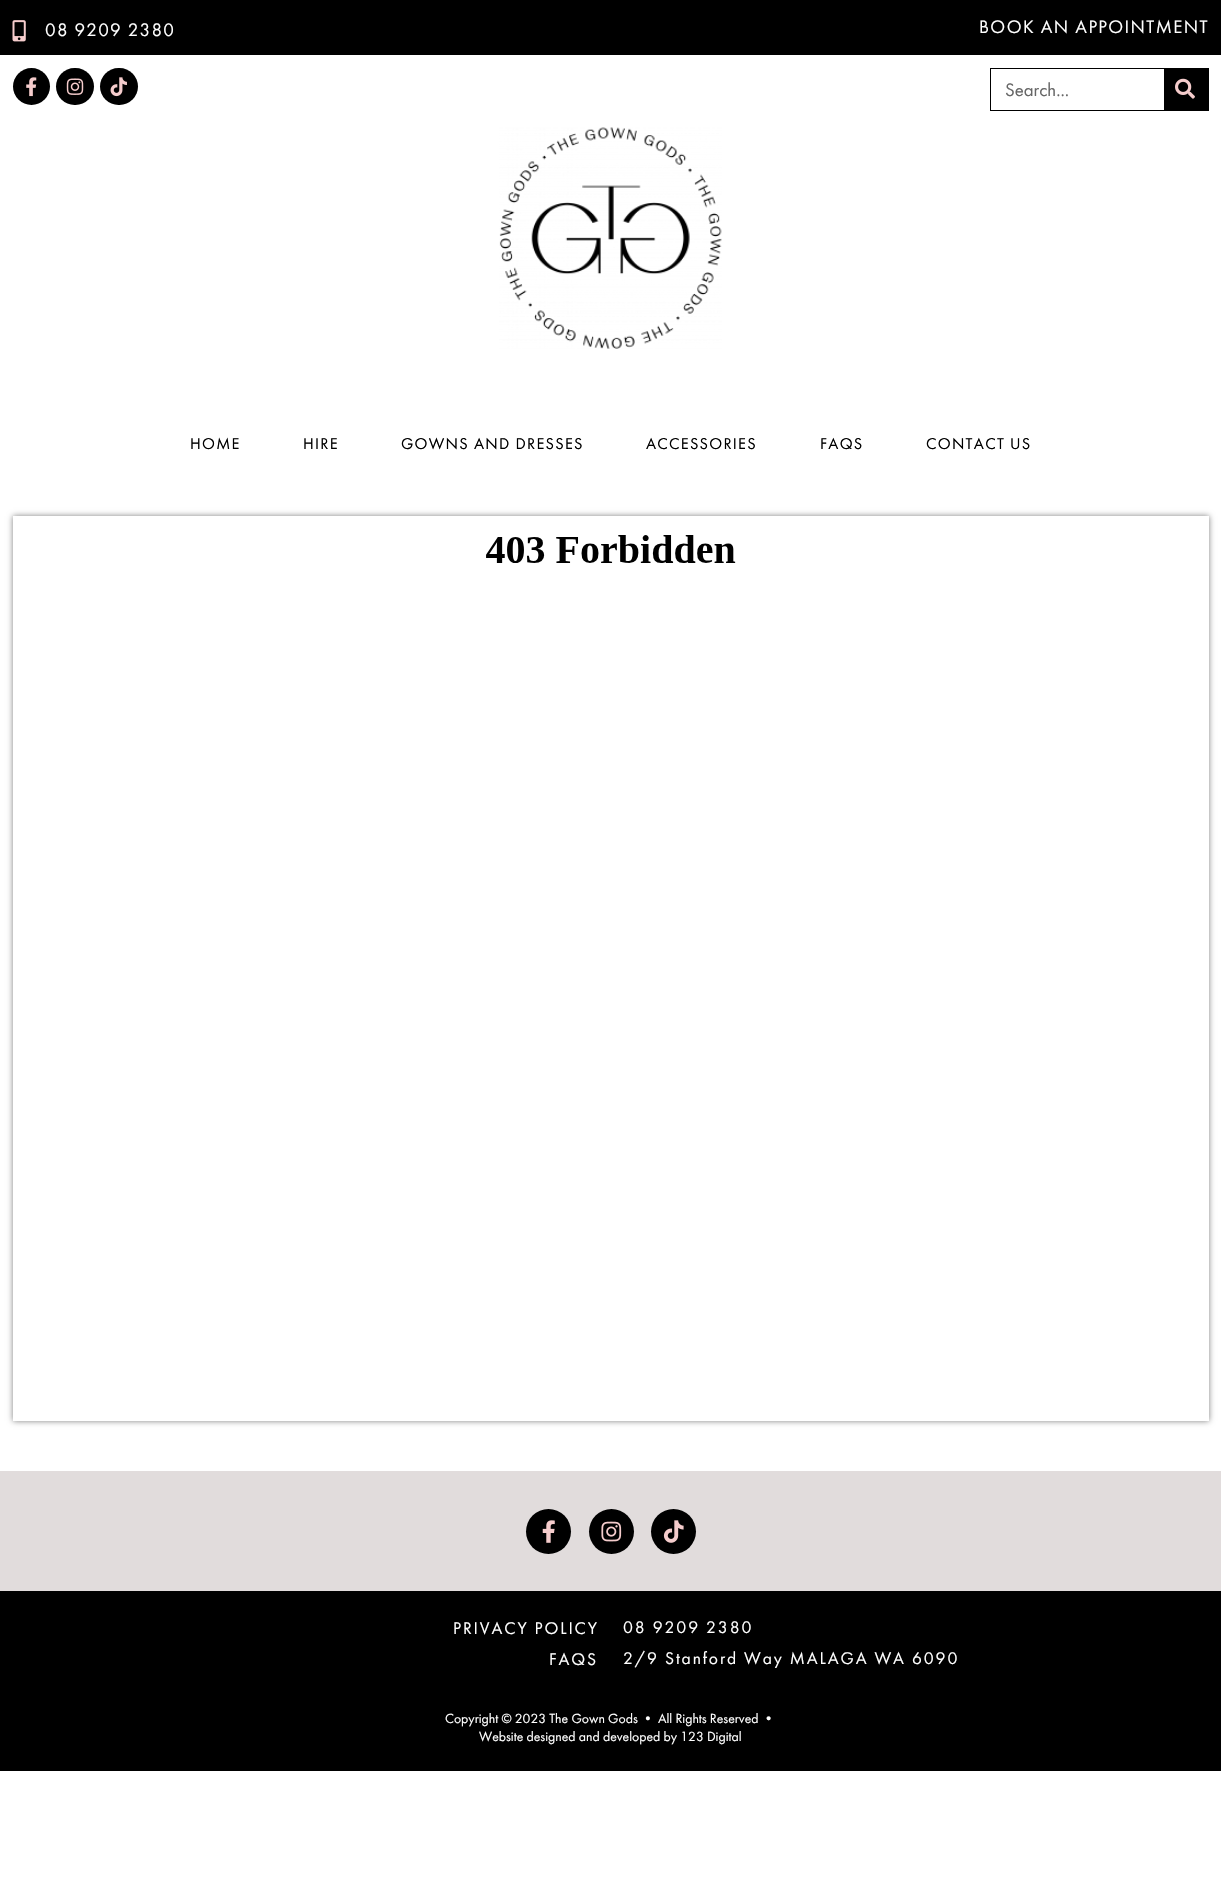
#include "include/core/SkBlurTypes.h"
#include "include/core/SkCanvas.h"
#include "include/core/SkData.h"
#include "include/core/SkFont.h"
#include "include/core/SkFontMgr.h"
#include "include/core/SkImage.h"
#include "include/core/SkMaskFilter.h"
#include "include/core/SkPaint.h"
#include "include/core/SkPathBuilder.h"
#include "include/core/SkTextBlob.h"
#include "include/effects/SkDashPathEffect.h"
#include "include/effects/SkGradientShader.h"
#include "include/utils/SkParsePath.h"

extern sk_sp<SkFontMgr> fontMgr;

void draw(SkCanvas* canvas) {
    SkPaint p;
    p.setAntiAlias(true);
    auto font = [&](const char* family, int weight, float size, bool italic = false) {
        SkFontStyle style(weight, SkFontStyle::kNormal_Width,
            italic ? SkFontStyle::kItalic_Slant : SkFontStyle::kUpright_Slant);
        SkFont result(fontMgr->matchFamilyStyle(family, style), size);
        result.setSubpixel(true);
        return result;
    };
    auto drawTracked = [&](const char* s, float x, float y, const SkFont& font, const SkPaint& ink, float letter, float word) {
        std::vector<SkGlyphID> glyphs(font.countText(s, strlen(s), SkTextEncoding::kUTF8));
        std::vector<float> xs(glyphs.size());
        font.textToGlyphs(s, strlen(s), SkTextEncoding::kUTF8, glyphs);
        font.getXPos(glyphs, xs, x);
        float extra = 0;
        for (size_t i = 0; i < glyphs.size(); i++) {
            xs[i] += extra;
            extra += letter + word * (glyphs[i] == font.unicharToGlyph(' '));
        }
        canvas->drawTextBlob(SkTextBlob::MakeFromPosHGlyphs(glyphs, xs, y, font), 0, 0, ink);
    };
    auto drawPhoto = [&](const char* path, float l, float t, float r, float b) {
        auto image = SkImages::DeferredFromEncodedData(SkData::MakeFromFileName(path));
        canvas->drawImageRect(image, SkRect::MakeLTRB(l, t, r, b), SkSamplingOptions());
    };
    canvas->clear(0xFFFFFFFF);
    p.setColor(0xFF000000);
    canvas->drawRect(SkRect::MakeLTRB(0, 0, 1221, 55), p);
    drawPhoto("media/1.png", 12, 20, 26, 42);
    auto font1 = font("Futura PT", 400, 18.75f);
    p.setColor(0xFFFFFFFF);
    drawTracked("08 9209 2380", 45, 36, font1, p, 1.25f, 0);
    drawTracked("BOOK AN APPOINTMENT", 979, 33, font1, p, 1.4f, 0);
    p.setColor(0xFF000000);
    canvas->drawCircle(31.5f, 86.5f, 18.5f, p);
    drawPhoto("media/2.png", 26, 77, 37, 97);
    canvas->drawRoundRect(SkRect::MakeLTRB(56, 68, 94, 105), 18.5f, 18.5f, p);
    drawPhoto("media/3.png", 66, 78, 84, 95);
    canvas->drawRoundRect(SkRect::MakeLTRB(100, 68, 138, 105), 18.5f, 18.5f, p);
    drawPhoto("media/4.png", 110, 77, 127, 97);
    p.setStyle(SkPaint::kStroke_Style);
    p.setStrokeWidth(1);
    canvas->drawRect(SkRect::MakeLTRB(990.5f, 68.5f, 1208.5f, 110.5f), p);
    p.setStyle(SkPaint::kFill_Style);
    p.setColor(0xFF666666);
    canvas->drawString("Search...", 1005, 96, font1, p);
    p.setColor(0xFF000000);
    canvas->drawRect(SkRect::MakeLTRB(1164, 69, 1208, 110), p);
    drawPhoto("media/5.png", 1175, 78, 1195, 99);
    drawPhoto("media/6.png", 499, 127, 722, 349);
    auto font2 = font("Futura PT", 400, 16.25f);
    {
        const struct { const char* s; float x, y; } items[] = {
            {"HOME", 190, 449},
            {"HIRE", 303, 449},
            {"GOWNS AND DRESSES", 401, 449},
            {"ACCESSORIES", 646, 449},
            {"FAQS", 820, 449},
            {"CONTACT US", 926, 449},
        };
        for (auto [s, x, y] : items) {
            drawTracked(s, x, y, font2, p, 1.25f, 0);
        }
    }
    canvas->save();
    canvas->clipPath(SkPathBuilder(SkPathFillType::kEvenOdd).moveTo(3, 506).lineTo(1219, 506).lineTo(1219, 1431).lineTo(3, 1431).close().moveTo(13, 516).lineTo(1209, 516).lineTo(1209, 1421).lineTo(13, 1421).close().detach(), true);
    p.setColor(0x80000000);
    p.setMaskFilter(SkMaskFilter::MakeBlur(kNormal_SkBlurStyle, 3));
    canvas->drawRect(SkRect::MakeLTRB(13, 516, 1209, 1421), p);
    p.setMaskFilter(nullptr);
    canvas->restore();
    drawPhoto("media/7.png", 486, 535, 736, 563);
    p.setColor(0xFFE1DCDC);
    canvas->drawRect(SkRect::MakeLTRB(0, 1471, 1221, 1591), p);
    p.setColor(0xFF000000);
    canvas->drawCircle(548.5f, 1531.5f, 22.5f, p);
    drawPhoto("media/8.png", 542, 1520, 555, 1543);
    canvas->drawCircle(611.5f, 1531.5f, 22.5f, p);
    drawPhoto("media/9.png", 601, 1521, 622, 1542);
    canvas->drawCircle(673.5f, 1531.5f, 22.5f, p);
    drawPhoto("media/10.png", 663, 1520, 684, 1543);
    canvas->drawRect(SkRect::MakeLTRB(0, 1591, 1221, 1771), p);
    auto font3 = font("Futura PT", 400, 17.5f);
    p.setColor(0xFFFFFFFF);
    {
        const struct { const char* s; float x, y; } items[] = {
            {"PRIVACY POLICY", 453, 1634},
            {"FAQS", 549, 1665},
            {"08 9209 2380", 623, 1633},
            {"2/9 Stanford Way MALAGA WA 6090", 623, 1664},
        };
        for (auto [s, x, y] : items) {
            drawTracked(s, x, y, font3, p, 1.9f, 0);
        }
    }
    auto font4 = font("Futura PT", 400, 13.75f);
    canvas->drawString("Copyright © 2023 The Gown Gods • All Rights Reserved •", 445, 1723, font4, p);
    canvas->drawString("Website designed and developed by 123 Digital", 479, 1741, font4, p);
}
